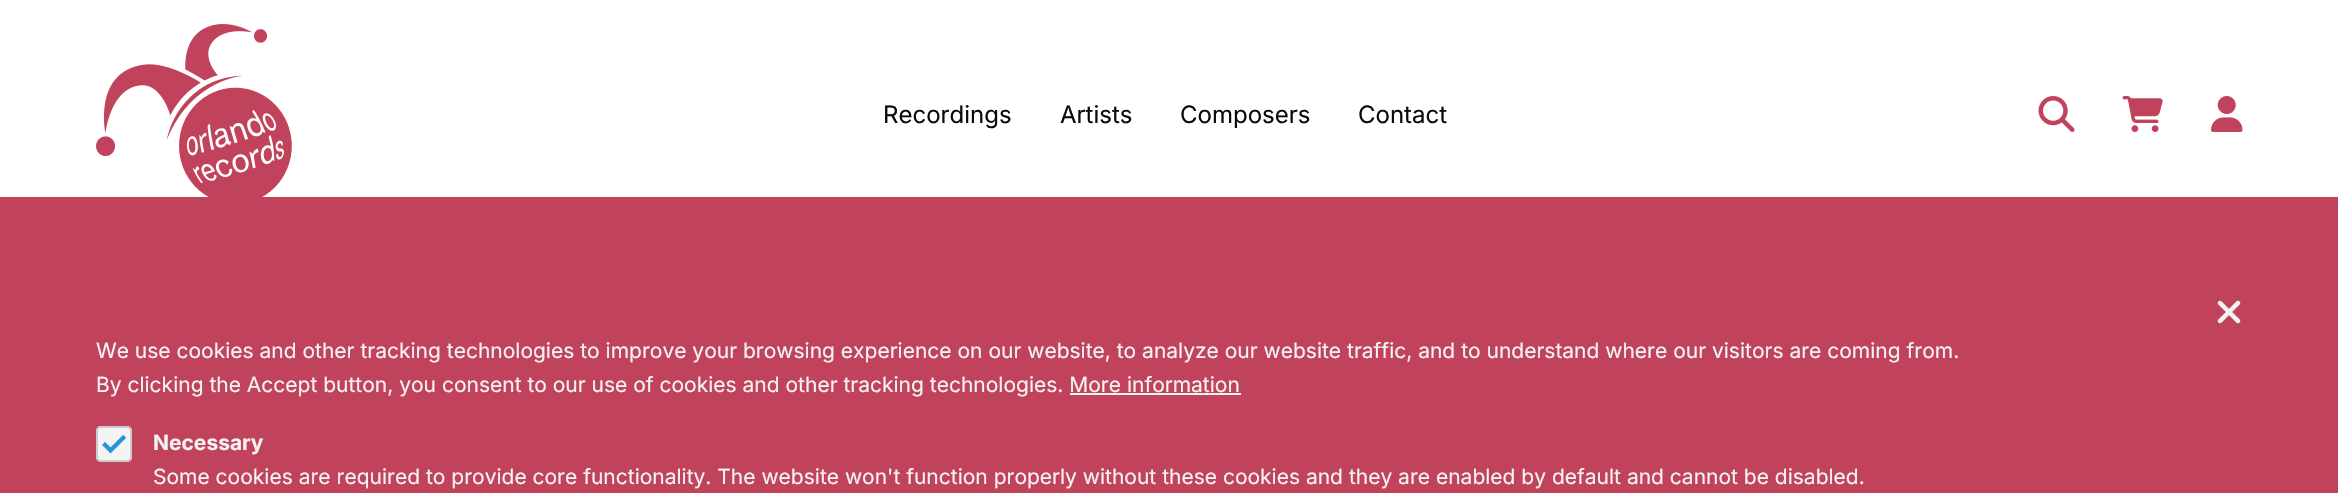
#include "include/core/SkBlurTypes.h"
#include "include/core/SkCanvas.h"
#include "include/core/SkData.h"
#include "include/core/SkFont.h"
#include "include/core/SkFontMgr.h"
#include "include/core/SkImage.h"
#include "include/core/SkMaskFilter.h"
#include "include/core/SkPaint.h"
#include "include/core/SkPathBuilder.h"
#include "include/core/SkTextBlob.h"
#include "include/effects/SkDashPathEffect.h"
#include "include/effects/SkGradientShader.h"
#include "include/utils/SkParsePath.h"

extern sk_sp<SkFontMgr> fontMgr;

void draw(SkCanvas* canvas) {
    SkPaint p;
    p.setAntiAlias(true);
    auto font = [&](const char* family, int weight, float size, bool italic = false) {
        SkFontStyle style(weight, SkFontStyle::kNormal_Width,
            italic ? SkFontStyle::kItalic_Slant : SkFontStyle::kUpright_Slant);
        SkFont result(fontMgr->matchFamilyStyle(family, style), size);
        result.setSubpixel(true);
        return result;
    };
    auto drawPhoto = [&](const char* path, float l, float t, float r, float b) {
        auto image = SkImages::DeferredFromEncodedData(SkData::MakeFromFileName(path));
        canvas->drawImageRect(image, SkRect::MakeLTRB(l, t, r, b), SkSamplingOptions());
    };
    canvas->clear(0xFFFFFFFF);
    drawPhoto("media/1.png", 96, 24, 292, 197);
    auto font1 = font("Inter", 400, 24);
    p.setColor(0xFF0A0A0A);
    {
        const struct { const char* s; float x, y; } items[] = {
            {"Recordings", 883, 123},
            {"Artists", 1060, 123},
            {"Composers", 1180, 123},
            {"Contact", 1358, 123},
        };
        for (auto [s, x, y] : items) {
            canvas->drawString(s, x, y, font1, p);
        }
    }
    drawPhoto("media/2.png", 2038, 96, 2075, 132);
    drawPhoto("media/3.png", 2122, 96, 2163, 132);
    drawPhoto("media/4.png", 2211, 96, 2243, 132);
    p.setColor(0xFFC1435B);
    canvas->drawRect(SkRect::MakeLTRB(0, 197, 2338, 493), p);
    drawPhoto("media/5.png", 2217, 300, 2241, 324);
    auto font2 = font("Inter", 400, 21);
    p.setColor(0xFFF3F3F3);
    canvas->drawString("We use cookies and other tracking technologies to improve your browsing experience on our website, to analyze our website traffic, and to understand where our visitors are coming from.", 96, 358, font2, p);
    canvas->drawString("By clicking the Accept button, you consent to our use of cookies and other tracking technologies. More information", 96, 392, font2, p);
    canvas->drawRect(SkRect::MakeLTRB(1070, 393, 1241, 395), p);
    canvas->drawRoundRect(SkRect::MakeLTRB(96, 426, 132, 462), 5, 5, p);
    drawPhoto("media/6.png", 102, 435, 126, 454);
    p.setStyle(SkPaint::kStroke_Style);
    p.setStrokeWidth(2);
    p.setColor(0xFFCCCCCC);
    canvas->drawRoundRect(SkRect::MakeLTRB(97, 427, 131, 461), 4, 4, p);
    auto font3 = font("Inter", 700, 21);
    p.setStyle(SkPaint::kFill_Style);
    p.setColor(0xFFF3F3F3);
    canvas->drawString("Necessary", 153, 450, font3, p);
    canvas->drawString("Some cookies are required to provide core functionality. The website won't function properly without these cookies and they are enabled by default and cannot be disabled.", 153, 484, font2, p);
}
